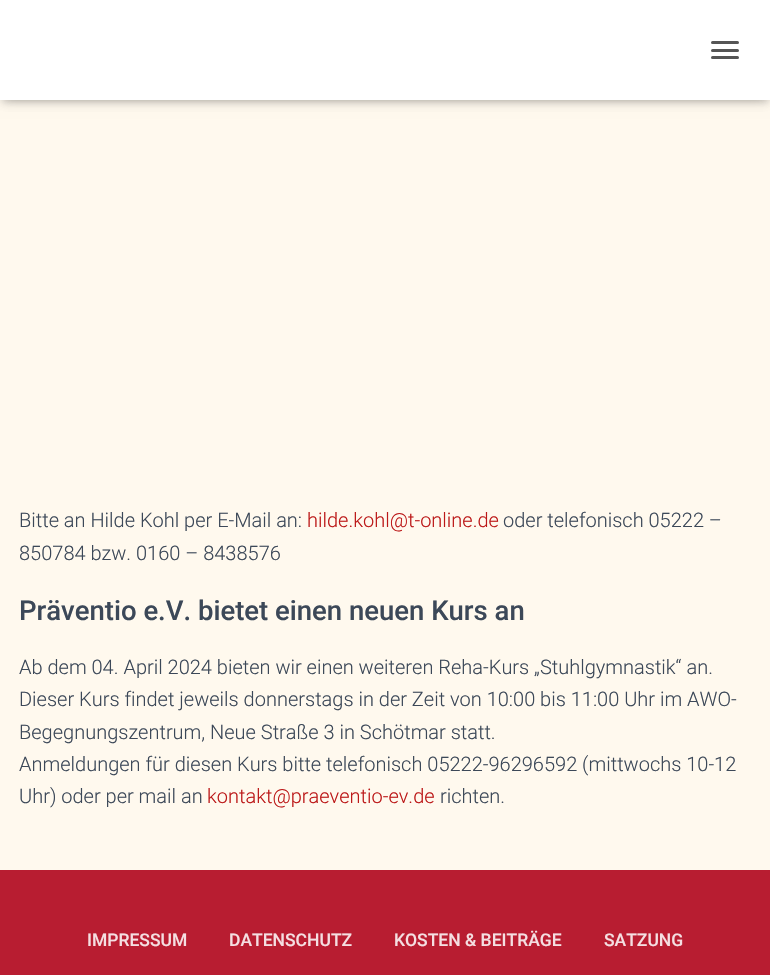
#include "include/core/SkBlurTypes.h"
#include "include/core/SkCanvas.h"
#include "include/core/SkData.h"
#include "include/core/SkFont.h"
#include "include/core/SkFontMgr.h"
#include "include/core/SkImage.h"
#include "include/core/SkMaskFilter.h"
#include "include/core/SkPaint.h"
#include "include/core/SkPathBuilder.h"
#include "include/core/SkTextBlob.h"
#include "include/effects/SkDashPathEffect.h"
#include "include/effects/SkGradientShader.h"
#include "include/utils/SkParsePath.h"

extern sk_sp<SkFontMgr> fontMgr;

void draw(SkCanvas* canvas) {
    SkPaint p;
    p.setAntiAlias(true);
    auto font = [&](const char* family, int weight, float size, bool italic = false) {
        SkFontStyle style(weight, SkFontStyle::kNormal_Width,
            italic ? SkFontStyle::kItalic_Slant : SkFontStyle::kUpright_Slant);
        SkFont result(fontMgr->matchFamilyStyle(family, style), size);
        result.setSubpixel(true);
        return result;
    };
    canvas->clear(0xFFFFF9EE);
    p.setColor(0x1A000000);
    p.setMaskFilter(SkMaskFilter::MakeBlur(kNormal_SkBlurStyle, 3));
    canvas->drawRect(SkRect::MakeLTRB(3, 8, 768, 103), p);
    p.setMaskFilter(nullptr);
    p.setColor(0x1F000000);
    p.setMaskFilter(SkMaskFilter::MakeBlur(kNormal_SkBlurStyle, 6));
    canvas->drawRect(SkRect::MakeLTRB(0, 1, 770, 101), p);
    p.setMaskFilter(nullptr);
    p.setColor(0x6B000000);
    p.setMaskFilter(SkMaskFilter::MakeBlur(kNormal_SkBlurStyle, 6));
    canvas->drawRect(SkRect::MakeLTRB(8, 9, 763, 94), p);
    p.setMaskFilter(nullptr);
    p.setColor(0xFFFFFFFF);
    canvas->drawRect(SkRect::MakeLTRB(0, 0, 770, 100), p);
    p.setColor(0xFF555555);
    canvas->drawRoundRect(SkRect::MakeLTRB(711, 41, 739, 44), 1.5f, 1.5f, p);
    canvas->drawRoundRect(SkRect::MakeLTRB(711, 49, 739, 52), 1.5f, 1.5f, p);
    canvas->drawRoundRect(SkRect::MakeLTRB(711, 56, 739, 59), 1.5f, 1.5f, p);
    auto font1 = font("Roboto", 300, 20);
    p.setColor(0xFF3C4858);
    canvas->drawString("Bitte an Hilde Kohl per E-Mail an:", 19, 527, font1, p);
    p.setColor(0xFFBC1818);
    canvas->drawString("hilde.kohl@t-online.de", 307, 527, font1, p);
    p.setColor(0xFF3C4858);
    canvas->drawString("oder telefonisch 05222 –", 503, 527, font1, p);
    canvas->drawString("850784 bzw. 0160 – 8438576", 19, 560, font1, p);
    auto font2 = font("Roboto", 500, 27.5f);
    canvas->drawString("Präventio e.V. bietet einen neuen Kurs an", 19, 620, font2, p);
    {
        const struct { const char* s; float x, y; } items[] = {
            {"Ab dem 04. April 2024 bieten wir einen weiteren Reha-Kurs „Stuhlgymnastik“ an.", 19, 674},
            {"Dieser Kurs findet jeweils donnerstags in der Zeit von 10:00 bis 11:00 Uhr im AWO-", 19, 706},
            {"Begegnungszentrum, Neue Straße 3 in Schötmar statt.", 19, 739},
            {"Anmeldungen für diesen Kurs bitte telefonisch 05222-96296592 (mittwochs 10-12", 19, 771},
            {"Uhr) oder per mail an", 19, 803},
        };
        for (auto [s, x, y] : items) {
            canvas->drawString(s, x, y, font1, p);
        }
    }
    p.setColor(0xFFBC1818);
    canvas->drawString("kontakt@praeventio-ev.de", 207, 803, font1, p);
    p.setColor(0xFF3C4858);
    canvas->drawString("richten.", 440, 803, font1, p);
    p.setColor(0xFFB81D31);
    canvas->drawRect(SkRect::MakeLTRB(0, 870, 770, 975), p);
    auto font3 = font("Roboto", 500, 17.5f);
    p.setColor(0xFFF5DFE2);
    {
        const struct { const char* s; float x, y; } items[] = {
            {"IMPRESSUM", 87, 946},
            {"DATENSCHUTZ", 229, 946},
            {"KOSTEN & BEITRÄGE", 394, 946},
            {"SATZUNG", 604, 946},
        };
        for (auto [s, x, y] : items) {
            canvas->drawString(s, x, y, font3, p);
        }
    }
}
